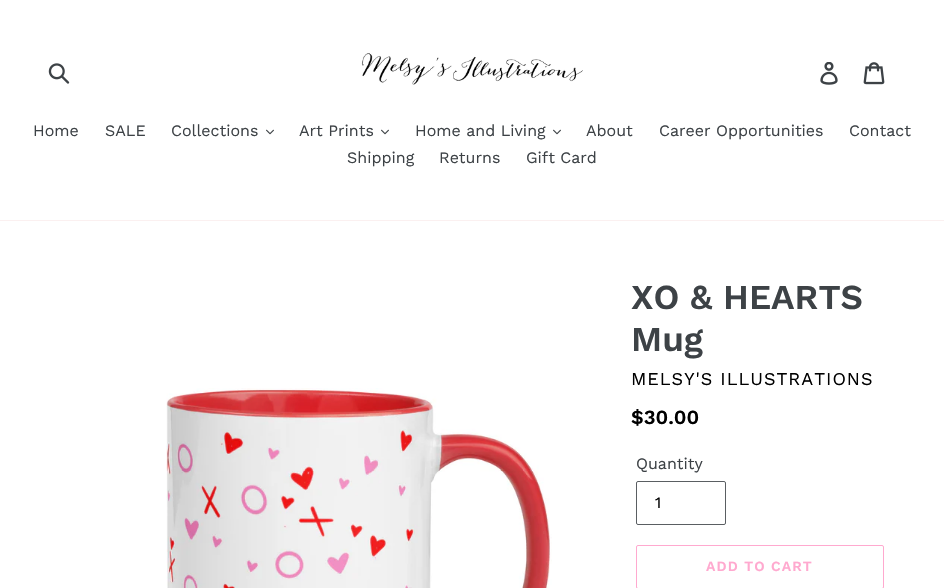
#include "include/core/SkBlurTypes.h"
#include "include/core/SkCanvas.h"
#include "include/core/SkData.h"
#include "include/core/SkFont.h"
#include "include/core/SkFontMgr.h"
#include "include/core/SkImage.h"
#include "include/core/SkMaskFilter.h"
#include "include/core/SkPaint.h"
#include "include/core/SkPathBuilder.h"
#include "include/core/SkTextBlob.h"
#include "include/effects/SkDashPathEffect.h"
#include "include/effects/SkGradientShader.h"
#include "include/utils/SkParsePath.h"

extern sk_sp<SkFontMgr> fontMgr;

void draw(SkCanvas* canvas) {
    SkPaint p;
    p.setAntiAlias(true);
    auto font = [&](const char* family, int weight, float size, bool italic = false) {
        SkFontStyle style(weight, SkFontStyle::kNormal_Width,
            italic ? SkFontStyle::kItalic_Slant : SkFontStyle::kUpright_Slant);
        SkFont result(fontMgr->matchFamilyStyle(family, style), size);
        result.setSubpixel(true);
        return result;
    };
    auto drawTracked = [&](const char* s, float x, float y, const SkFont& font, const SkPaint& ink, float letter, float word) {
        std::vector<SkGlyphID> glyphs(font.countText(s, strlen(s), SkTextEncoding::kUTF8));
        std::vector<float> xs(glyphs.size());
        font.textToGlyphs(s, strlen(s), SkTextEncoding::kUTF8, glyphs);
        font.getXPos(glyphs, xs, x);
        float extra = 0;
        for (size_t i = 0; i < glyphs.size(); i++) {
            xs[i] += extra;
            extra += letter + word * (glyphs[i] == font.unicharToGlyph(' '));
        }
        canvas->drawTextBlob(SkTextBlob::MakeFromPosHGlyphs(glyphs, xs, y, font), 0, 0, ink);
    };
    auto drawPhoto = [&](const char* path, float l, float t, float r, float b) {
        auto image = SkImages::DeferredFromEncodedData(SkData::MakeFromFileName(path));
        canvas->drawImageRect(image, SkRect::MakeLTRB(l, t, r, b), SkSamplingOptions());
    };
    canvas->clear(0xFFFFFFFF);
    drawPhoto("media/1.png", 48, 63, 70, 84);
    drawPhoto("media/2.png", 361, 53, 583, 85);
    drawPhoto("media/3.png", 820, 62, 838, 85);
    drawPhoto("media/4.png", 863, 62, 885, 85);
    p.setColor(0xFFFBF0F0);
    canvas->drawRect(SkRect::MakeLTRB(0, 220, 944, 221), p);
    auto font1 = font("Work Sans", 400, 16);
    p.setColor(0xFF3D4246);
    {
        const struct { const char* s; float x, y; } items[] = {
            {"Home", 33, 136},
            {"SALE", 105, 136},
            {"Collections", 171, 136},
        };
        for (auto [s, x, y] : items) {
            canvas->drawString(s, x, y, font1, p);
        }
    }
    drawPhoto("media/5.png", 266, 129, 274, 135);
    canvas->drawString("Art Prints", 299, 136, font1, p);
    drawPhoto("media/5.png", 381, 129, 389, 135);
    canvas->drawString("Home and Living", 415, 136, font1, p);
    drawPhoto("media/5.png", 553, 129, 561, 135);
    {
        const struct { const char* s; float x, y; } items[] = {
            {"About", 586, 136},
            {"Career Opportunities", 659, 136},
            {"Contact", 849, 136},
            {"Shipping", 347, 163},
            {"Returns", 439, 163},
            {"Gift Card", 526, 163},
        };
        for (auto [s, x, y] : items) {
            canvas->drawString(s, x, y, font1, p);
        }
    }
    drawPhoto("media/6.png", 166, 388, 552, 588);
    auto font2 = font("Work Sans", 600, 35);
    canvas->drawString("XO & HEARTS", 631, 309, font2, p);
    canvas->drawString("Mug", 631, 351, font2, p);
    auto font3 = font("Work Sans", 400, 18);
    p.setColor(0xFF000000);
    drawTracked("MELSY'S ILLUSTRATIONS", 631, 385, font3, p, 1, 0);
    auto font4 = font("Work Sans", 600, 20);
    canvas->drawString("$30.00", 631, 424, font4, p);
    p.setColor(0xFF3D4246);
    canvas->drawString("Quantity", 636, 469, font1, p);
    p.setStyle(SkPaint::kStroke_Style);
    p.setStrokeWidth(1);
    p.setColor(0xFF5A5E62);
    canvas->drawRoundRect(SkRect::MakeLTRB(636.5f, 481.5f, 725.5f, 524.5f), 1.5f, 1.5f, p);
    p.setStyle(SkPaint::kFill_Style);
    p.setColor(0xFF000000);
    canvas->drawString("1", 655, 508, font1, p);
    p.setStyle(SkPaint::kStroke_Style);
    p.setColor(0xFFFFA9CF);
    canvas->drawRoundRect(SkRect::MakeLTRB(636.5f, 545.5f, 883.5f, 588.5f), 1.5f, 1.5f, p);
    auto font5 = font("Work Sans", 600, 14);
    p.setStyle(SkPaint::kFill_Style);
    drawTracked("ADD TO CART", 706, 571, font5, p, 1.1f, 0);
}
